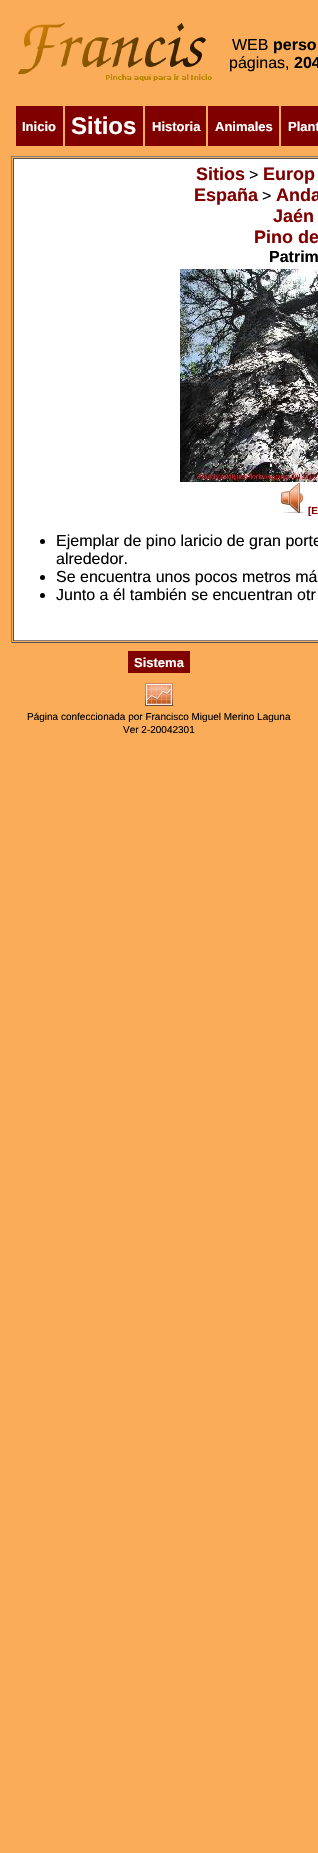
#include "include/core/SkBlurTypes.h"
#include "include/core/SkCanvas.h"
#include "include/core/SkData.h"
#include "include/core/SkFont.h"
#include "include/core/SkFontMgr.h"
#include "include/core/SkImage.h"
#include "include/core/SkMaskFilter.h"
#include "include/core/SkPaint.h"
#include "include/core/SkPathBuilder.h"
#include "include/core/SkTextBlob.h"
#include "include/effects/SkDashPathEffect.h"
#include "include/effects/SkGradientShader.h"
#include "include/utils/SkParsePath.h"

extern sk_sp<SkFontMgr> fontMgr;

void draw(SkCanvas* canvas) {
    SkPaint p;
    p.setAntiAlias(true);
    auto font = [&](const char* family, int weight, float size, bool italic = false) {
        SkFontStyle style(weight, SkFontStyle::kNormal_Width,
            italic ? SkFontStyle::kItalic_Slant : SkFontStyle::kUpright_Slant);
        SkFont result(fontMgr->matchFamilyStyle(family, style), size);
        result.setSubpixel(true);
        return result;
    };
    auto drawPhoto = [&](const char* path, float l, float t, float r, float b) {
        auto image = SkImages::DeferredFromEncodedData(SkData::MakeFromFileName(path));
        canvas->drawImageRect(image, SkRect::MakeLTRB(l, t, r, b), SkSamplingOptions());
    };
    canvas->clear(0xFFFAAC58);
    drawPhoto("media/1.png", 17, 22, 212, 82);
    auto font1 = font("Liberation Sans", 400, 16);
    p.setColor(0xFF000000);
    canvas->drawString("WEB", 232, 50, font1, p);
    auto font2 = font("Liberation Sans", 700, 16);
    canvas->drawString("perso", 273, 50, font2, p);
    canvas->drawString("páginas,", 229, 68, font1, p);
    canvas->drawString("204", 294, 68, font2, p);
    p.setColor(0xFF800000);
    canvas->drawRect(SkRect::MakeLTRB(16, 106, 63, 146), p);
    auto font3 = font("Liberation Sans", 700, 13);
    p.setColor(0xFFFFFFFF);
    canvas->drawString("Inicio", 22, 131, font3, p);
    p.setColor(0xFF800000);
    canvas->drawRect(SkRect::MakeLTRB(65, 106, 143, 146), p);
    auto font4 = font("Liberation Sans", 700, 24);
    p.setColor(0xFFFFFFFF);
    canvas->drawString("Sitios", 71, 134, font4, p);
    p.setColor(0xFF800000);
    canvas->drawRect(SkRect::MakeLTRB(145, 106, 206, 146), p);
    p.setColor(0xFFFFFFFF);
    canvas->drawString("Historia", 152, 131, font3, p);
    p.setColor(0xFF800000);
    canvas->drawRect(SkRect::MakeLTRB(208, 106, 279, 146), p);
    p.setColor(0xFFFFFFFF);
    canvas->drawString("Animales", 215, 131, font3, p);
    p.setColor(0xFF800000);
    canvas->drawRect(SkRect::MakeLTRB(281, 106, 318, 146), p);
    p.setColor(0xFFFFFFFF);
    canvas->drawString("Plant", 288, 131, font3, p);
    {
        const struct { float l, t, r, b; SkColor color; } items[] = {
            {11, 156, 318, 157, 0xFF808080},
            {11, 642, 318, 643, 0xFF555555},
            {11, 156, 12, 643, 0xFF808080},
            {14, 159, 318, 640, 0xFFFFFFFF},
            {13, 158, 318, 159, 0xFF555555},
            {13, 640, 318, 641, 0xFF808080},
            {13, 158, 14, 641, 0xFF555555},
        };
        for (auto [l, t, r, b, color] : items) {
            p.setColor(color);
            canvas->drawRect(SkRect::MakeLTRB(l, t, r, b), p);
        }
    }
    auto font5 = font("Liberation Sans", 700, 18);
    p.setColor(0xFF800000);
    canvas->drawString("Sitios", 196, 180, font5, p);
    p.setColor(0xFF000000);
    canvas->drawString(">", 249, 180, font1, p);
    p.setColor(0xFF800000);
    canvas->drawString("Europ", 263, 180, font5, p);
    canvas->drawString("España", 194, 201, font5, p);
    p.setColor(0xFF000000);
    canvas->drawString(">", 262, 201, font1, p);
    p.setColor(0xFF800000);
    {
        const struct { const char* s; float x, y; } items[] = {
            {"Anda", 276, 201},
            {"Jaén", 273, 222},
            {"Pino de", 254, 243},
        };
        for (auto [s, x, y] : items) {
            canvas->drawString(s, x, y, font5, p);
        }
    }
    p.setColor(0xFF000000);
    canvas->drawString("Patrim", 269, 262, font2, p);
    drawPhoto("media/2.png", 180, 269, 318, 482);
    drawPhoto("media/3.png", 281, 483, 306, 513);
    auto font6 = font("Liberation Sans", 700, 10);
    p.setColor(0xFF800000);
    canvas->drawString("[E", 308, 514, font6, p);
    p.setColor(0xFF000000);
    canvas->drawCircle(42.5f, 541.5f, 2.5f, p);
    canvas->drawString("Ejemplar de pino laricio de gran porte", 56, 546, font1, p);
    canvas->drawString("alrededor.", 56, 564, font1, p);
    canvas->drawCircle(42.5f, 577.5f, 2.5f, p);
    canvas->drawString("Se encuentra unos pocos metros má", 56, 582, font1, p);
    canvas->drawCircle(42.5f, 595.5f, 2.5f, p);
    canvas->drawString("Junto a él también se encuentran otr", 56, 600, font1, p);
    p.setColor(0xFF800000);
    canvas->drawRect(SkRect::MakeLTRB(128, 651, 190, 673), p);
    p.setColor(0xFFFFFFFF);
    canvas->drawString("Sistema", 134, 667, font3, p);
    drawPhoto("media/4.png", 144, 683, 175, 706);
    auto font7 = font("Liberation Sans", 400, 10);
    p.setColor(0xFF000000);
    canvas->drawString("Página confeccionada por Francisco Miguel Merino Laguna", 27, 720, font7, p);
    canvas->drawString("Ver 2-20042301", 123, 733, font7, p);
}
